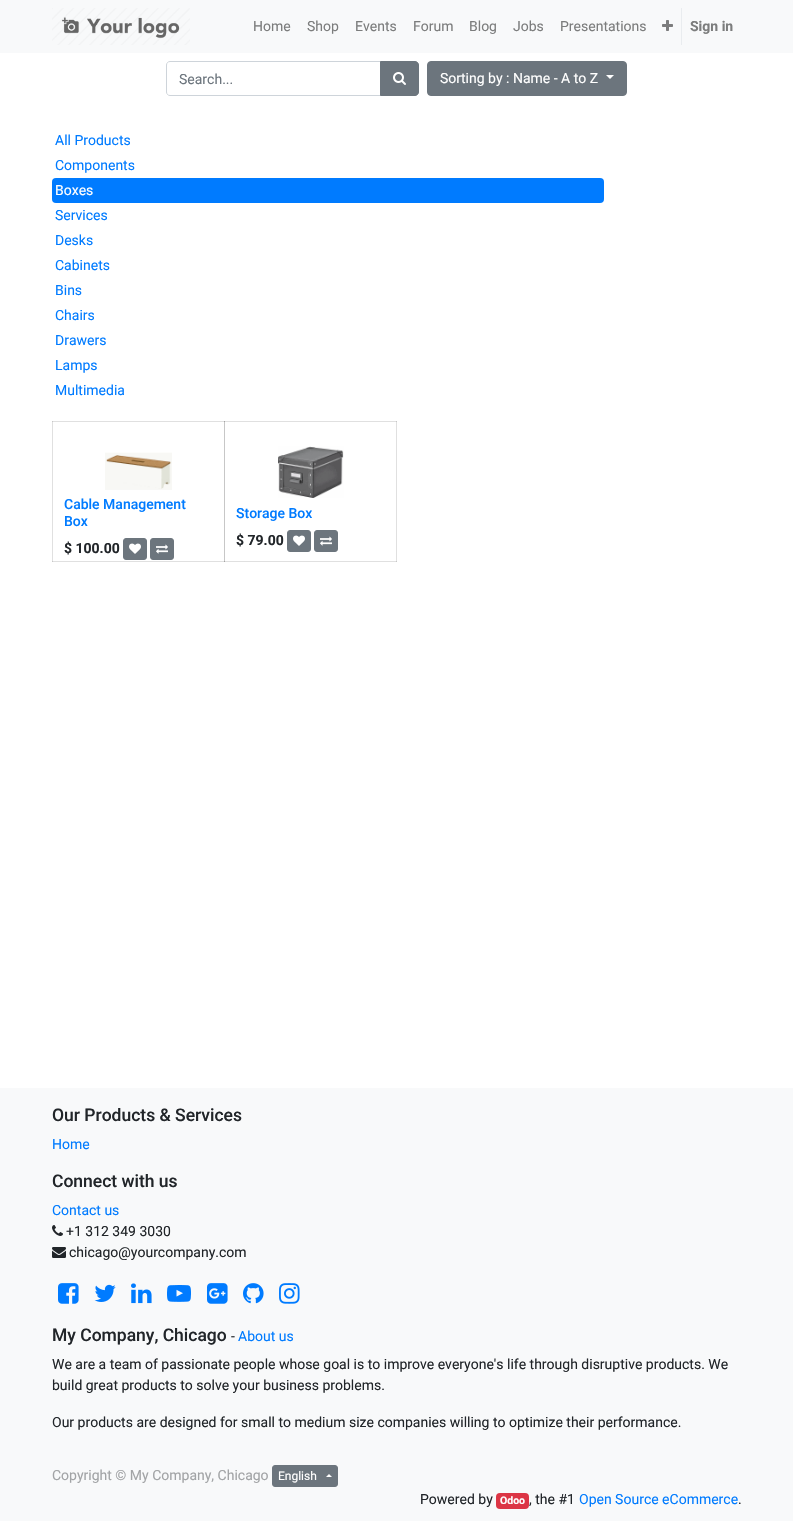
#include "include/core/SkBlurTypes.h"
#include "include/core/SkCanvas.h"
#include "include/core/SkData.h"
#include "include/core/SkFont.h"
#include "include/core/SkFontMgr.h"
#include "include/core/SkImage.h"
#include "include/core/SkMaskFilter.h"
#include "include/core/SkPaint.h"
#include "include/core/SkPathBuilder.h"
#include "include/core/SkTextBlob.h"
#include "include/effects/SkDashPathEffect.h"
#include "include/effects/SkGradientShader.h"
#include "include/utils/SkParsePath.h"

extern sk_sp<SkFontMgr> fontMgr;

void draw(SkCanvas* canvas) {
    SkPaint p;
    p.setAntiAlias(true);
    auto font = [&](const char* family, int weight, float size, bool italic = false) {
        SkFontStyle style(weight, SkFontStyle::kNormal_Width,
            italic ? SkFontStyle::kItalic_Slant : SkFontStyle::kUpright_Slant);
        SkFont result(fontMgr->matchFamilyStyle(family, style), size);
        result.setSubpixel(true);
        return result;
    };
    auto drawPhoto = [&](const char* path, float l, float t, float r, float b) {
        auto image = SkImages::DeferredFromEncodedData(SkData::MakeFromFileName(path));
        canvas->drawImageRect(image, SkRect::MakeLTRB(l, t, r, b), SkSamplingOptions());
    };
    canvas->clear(0xFFFFFFFF);
    {
        const struct { float l, t, r, b; SkColor color; } items[] = {
            {52, 421, 53, 562, 0xFFE0E0E0},
            {52, 561, 225, 562, 0xFFE0E0E0},
            {52, 561, 53, 562, 0xFFC7C7C7},
            {52, 421, 225, 422, 0xFFE0E0E0},
            {52, 421, 53, 422, 0xFFC7C7C7},
            {224, 421, 225, 562, 0xFFC7C7C7},
            {224, 561, 397, 562, 0xFFE0E0E0},
            {224, 561, 225, 562, 0xFFA3A3A3},
            {396, 421, 397, 562, 0xFFE0E0E0},
            {396, 561, 397, 562, 0xFFC7C7C7},
            {0, 0, 793, 53, 0xFFF8F9FA},
        };
        for (auto [l, t, r, b, color] : items) {
            p.setColor(color);
            canvas->drawRect(SkRect::MakeLTRB(l, t, r, b), p);
        }
    }
    drawPhoto("media/1.png", 52, 8, 190, 45);
    auto font1 = font("Roboto", 400, 14);
    p.setColor(0xFF7C7D7D);
    {
        const struct { const char* s; float x, y; } items[] = {
            {"Home", 253, 31},
            {"Shop", 307, 31},
            {"Events", 355, 31},
            {"Forum", 413, 31},
            {"Blog", 469, 31},
            {"Jobs", 513, 31},
            {"Presentations", 560, 31},
        };
        for (auto [s, x, y] : items) {
            canvas->drawString(s, x, y, font1, p);
        }
    }
    drawPhoto("media/2.png", 662, 20, 673, 31);
    p.setColor(0xFFE9ECEF);
    canvas->drawRect(SkRect::MakeLTRB(681, 8, 682, 45), p);
    auto font2 = font("Roboto", 700, 14);
    p.setColor(0xFF7C7D7D);
    canvas->drawString("Sign in", 690, 31, font2, p);
    p.setStyle(SkPaint::kStroke_Style);
    p.setStrokeWidth(1);
    p.setColor(0xFFCED4DA);
    canvas->drawPath(SkPathBuilder().moveTo(170, 61.5f).lineTo(380.5f, 61.5f).lineTo(380.5f, 95.5f).lineTo(170, 95.5f).cubicTo(168, 95.5f, 166.5f, 94, 166.5f, 92).lineTo(166.5f, 65).cubicTo(166.5f, 63, 168, 61.5f, 170, 61.5f).close().detach(), p);
    p.setStyle(SkPaint::kFill_Style);
    p.setColor(0xFF6C757D);
    canvas->drawString("Search...", 179, 84, font1, p);
    canvas->drawPath(SkPathBuilder().moveTo(380.5f, 61.5f).lineTo(415, 61.5f).cubicTo(417, 61.5f, 418.5f, 63, 418.5f, 65).lineTo(418.5f, 92).cubicTo(418.5f, 94, 417, 95.5f, 415, 95.5f).lineTo(380.5f, 95.5f).close().detach(), p);
    p.setStyle(SkPaint::kStroke_Style);
    canvas->drawPath(SkPathBuilder().moveTo(380.5f, 61.5f).lineTo(415, 61.5f).cubicTo(417, 61.5f, 418.5f, 63, 418.5f, 65).lineTo(418.5f, 92).cubicTo(418.5f, 94, 417, 95.5f, 415, 95.5f).lineTo(380.5f, 95.5f).close().detach(), p);
    drawPhoto("media/3.png", 393, 72, 406, 85);
    p.setStyle(SkPaint::kFill_Style);
    canvas->drawRoundRect(SkRect::MakeLTRB(427.5f, 61.5f, 626.5f, 95.5f), 3.5f, 3.5f, p);
    p.setStyle(SkPaint::kStroke_Style);
    canvas->drawRoundRect(SkRect::MakeLTRB(427.5f, 61.5f, 626.5f, 95.5f), 3.5f, 3.5f, p);
    p.setStyle(SkPaint::kFill_Style);
    p.setColor(0xFFFFFFFF);
    canvas->drawString("Sorting by : Name - A to Z", 440, 83, font1, p);
    canvas->drawPath(SkPathBuilder().moveTo(606, 75).lineTo(614, 75).lineTo(610, 79).close().detach(), p);
    p.setColor(0xFF007BFF);
    canvas->drawString("All Products", 55, 145, font1, p);
    canvas->drawString("Components", 55, 170, font1, p);
    canvas->drawRoundRect(SkRect::MakeLTRB(52, 178, 604, 203), 4, 4, p);
    p.setColor(0xFFFFFFFF);
    canvas->drawString("Boxes", 55, 195, font1, p);
    p.setColor(0xFF007BFF);
    {
        const struct { const char* s; float x, y; } items[] = {
            {"Services", 55, 220},
            {"Desks", 55, 245},
            {"Cabinets", 55, 270},
            {"Bins", 55, 295},
            {"Chairs", 55, 320},
            {"Drawers", 55, 345},
            {"Lamps", 55, 370},
            {"Multimedia", 55, 395},
        };
        for (auto [s, x, y] : items) {
            canvas->drawString(s, x, y, font1, p);
        }
    }
    drawPhoto("media/4.png", 105, 452, 172, 490);
    auto font3 = font("Roboto", 500, 14);
    canvas->drawString("Cable Management", 64, 509, font3, p);
    canvas->drawString("Box", 64, 526, font3, p);
    p.setColor(0xFF212529);
    canvas->drawString("$ 100.00", 64, 553, font2, p);
    p.setColor(0xFF6C757D);
    canvas->drawRoundRect(SkRect::MakeLTRB(123.5f, 538.5f, 146.5f, 559.5f), 2.5f, 2.5f, p);
    p.setStyle(SkPaint::kStroke_Style);
    canvas->drawRoundRect(SkRect::MakeLTRB(123.5f, 538.5f, 146.5f, 559.5f), 2.5f, 2.5f, p);
    drawPhoto("media/5.png", 129, 543, 141, 554);
    p.setStyle(SkPaint::kFill_Style);
    canvas->drawRoundRect(SkRect::MakeLTRB(150.5f, 538.5f, 173.5f, 559.5f), 2.5f, 2.5f, p);
    p.setStyle(SkPaint::kStroke_Style);
    canvas->drawRoundRect(SkRect::MakeLTRB(150.5f, 538.5f, 173.5f, 559.5f), 2.5f, 2.5f, p);
    drawPhoto("media/6.png", 156, 544, 168, 554);
    p.setStyle(SkPaint::kFill_Style);
    {
        const struct { float l, t, r, b; SkColor color; } items[] = {
            {224, 421, 397, 422, 0xFFE0E0E0},
            {224, 421, 225, 422, 0xFFA3A3A3},
            {396, 421, 397, 422, 0xFFC7C7C7},
        };
        for (auto [l, t, r, b, color] : items) {
            p.setColor(color);
            canvas->drawRect(SkRect::MakeLTRB(l, t, r, b), p);
        }
    }
    drawPhoto("media/7.png", 278, 446, 344, 498);
    p.setColor(0xFF007BFF);
    canvas->drawString("Storage Box", 236, 518, font3, p);
    p.setColor(0xFF212529);
    canvas->drawString("$ 79.00", 236, 545, font2, p);
    p.setColor(0xFF6C757D);
    canvas->drawRoundRect(SkRect::MakeLTRB(287.5f, 530.5f, 310.5f, 551.5f), 2.5f, 2.5f, p);
    p.setStyle(SkPaint::kStroke_Style);
    canvas->drawRoundRect(SkRect::MakeLTRB(287.5f, 530.5f, 310.5f, 551.5f), 2.5f, 2.5f, p);
    drawPhoto("media/5.png", 293, 535, 305, 546);
    p.setStyle(SkPaint::kFill_Style);
    canvas->drawRoundRect(SkRect::MakeLTRB(314.5f, 530.5f, 337.5f, 551.5f), 2.5f, 2.5f, p);
    p.setStyle(SkPaint::kStroke_Style);
    canvas->drawRoundRect(SkRect::MakeLTRB(314.5f, 530.5f, 337.5f, 551.5f), 2.5f, 2.5f, p);
    drawPhoto("media/6.png", 320, 536, 332, 546);
    p.setStyle(SkPaint::kFill_Style);
    p.setColor(0xFFF8F9FA);
    canvas->drawRect(SkRect::MakeLTRB(0, 1088, 793, 1521), p);
    auto font4 = font("Roboto", 500, 17.5f);
    p.setColor(0xFF212529);
    canvas->drawString("Our Products & Services", 52, 1121, font4, p);
    p.setColor(0xFF007BFF);
    canvas->drawString("Home", 52, 1149, font1, p);
    p.setColor(0xFF212529);
    canvas->drawString("Connect with us", 52, 1187, font4, p);
    p.setColor(0xFF007BFF);
    canvas->drawString("Contact us", 52, 1215, font1, p);
    drawPhoto("media/8.png", 52, 1225, 63, 1236);
    p.setColor(0xFF212529);
    canvas->drawString("+1 312 349 3030", 66, 1236, font1, p);
    drawPhoto("media/9.png", 52, 1247, 66, 1258);
    canvas->drawString("chicago@yourcompany.com", 69, 1257, font1, p);
    drawPhoto("media/10.png", 58, 1283, 79, 1304);
    drawPhoto("media/11.png", 94, 1284, 116, 1302);
    drawPhoto("media/12.png", 131, 1283, 152, 1304);
    drawPhoto("media/13.png", 167, 1285, 191, 1302);
    drawPhoto("media/14.png", 207, 1283, 228, 1304);
    drawPhoto("media/15.png", 243, 1283, 264, 1304);
    drawPhoto("media/16.png", 279, 1283, 300, 1304);
    canvas->drawString("My Company, Chicago", 52, 1341, font4, p);
    canvas->drawString("-", 231, 1341, font1, p);
    p.setColor(0xFF007BFF);
    canvas->drawString("About us", 238, 1341, font1, p);
    p.setColor(0xFF212529);
    {
        const struct { const char* s; float x, y; } items[] = {
            {"We are a team of passionate people whose goal is to improve everyone's life through disruptive products. We", 52, 1369},
            {"build great products to solve your business problems.", 52, 1390},
            {"Our products are designed for small to medium size companies willing to optimize their performance.", 52, 1427},
        };
        for (auto [s, x, y] : items) {
            canvas->drawString(s, x, y, font1, p);
        }
    }
    p.setColor(0xFFA2A4A6);
    canvas->drawString("Copyright © My Company, Chicago", 52, 1480, font1, p);
    p.setColor(0xFF6C757D);
    canvas->drawRoundRect(SkRect::MakeLTRB(272.5f, 1465.5f, 337.5f, 1486.5f), 2.5f, 2.5f, p);
    p.setStyle(SkPaint::kStroke_Style);
    canvas->drawRoundRect(SkRect::MakeLTRB(272.5f, 1465.5f, 337.5f, 1486.5f), 2.5f, 2.5f, p);
    auto font5 = font("Roboto", 400, 12);
    p.setStyle(SkPaint::kFill_Style);
    p.setColor(0xFFFFFFFF);
    canvas->drawString("English", 278, 1480, font5, p);
    canvas->drawPath(SkPathBuilder().moveTo(332, 1477).lineTo(326, 1477).lineTo(329, 1474).close().detach(), p);
    p.setColor(0xFF212529);
    canvas->drawString("Powered by", 420, 1504, font1, p);
    p.setColor(0xFFDC3545);
    canvas->drawRoundRect(SkRect::MakeLTRB(496, 1493, 529, 1509), 4, 4, p);
    auto font6 = font("Roboto", 700, 10.5f);
    p.setColor(0xFFFFFFFF);
    canvas->drawString("Odoo", 500, 1504, font6, p);
    p.setColor(0xFF212529);
    canvas->drawString(", the #1", 529, 1504, font1, p);
    p.setColor(0xFF007BFF);
    canvas->drawString("Open Source eCommerce", 579, 1504, font1, p);
    p.setColor(0xFF212529);
    canvas->drawString(".", 738, 1504, font1, p);
}
